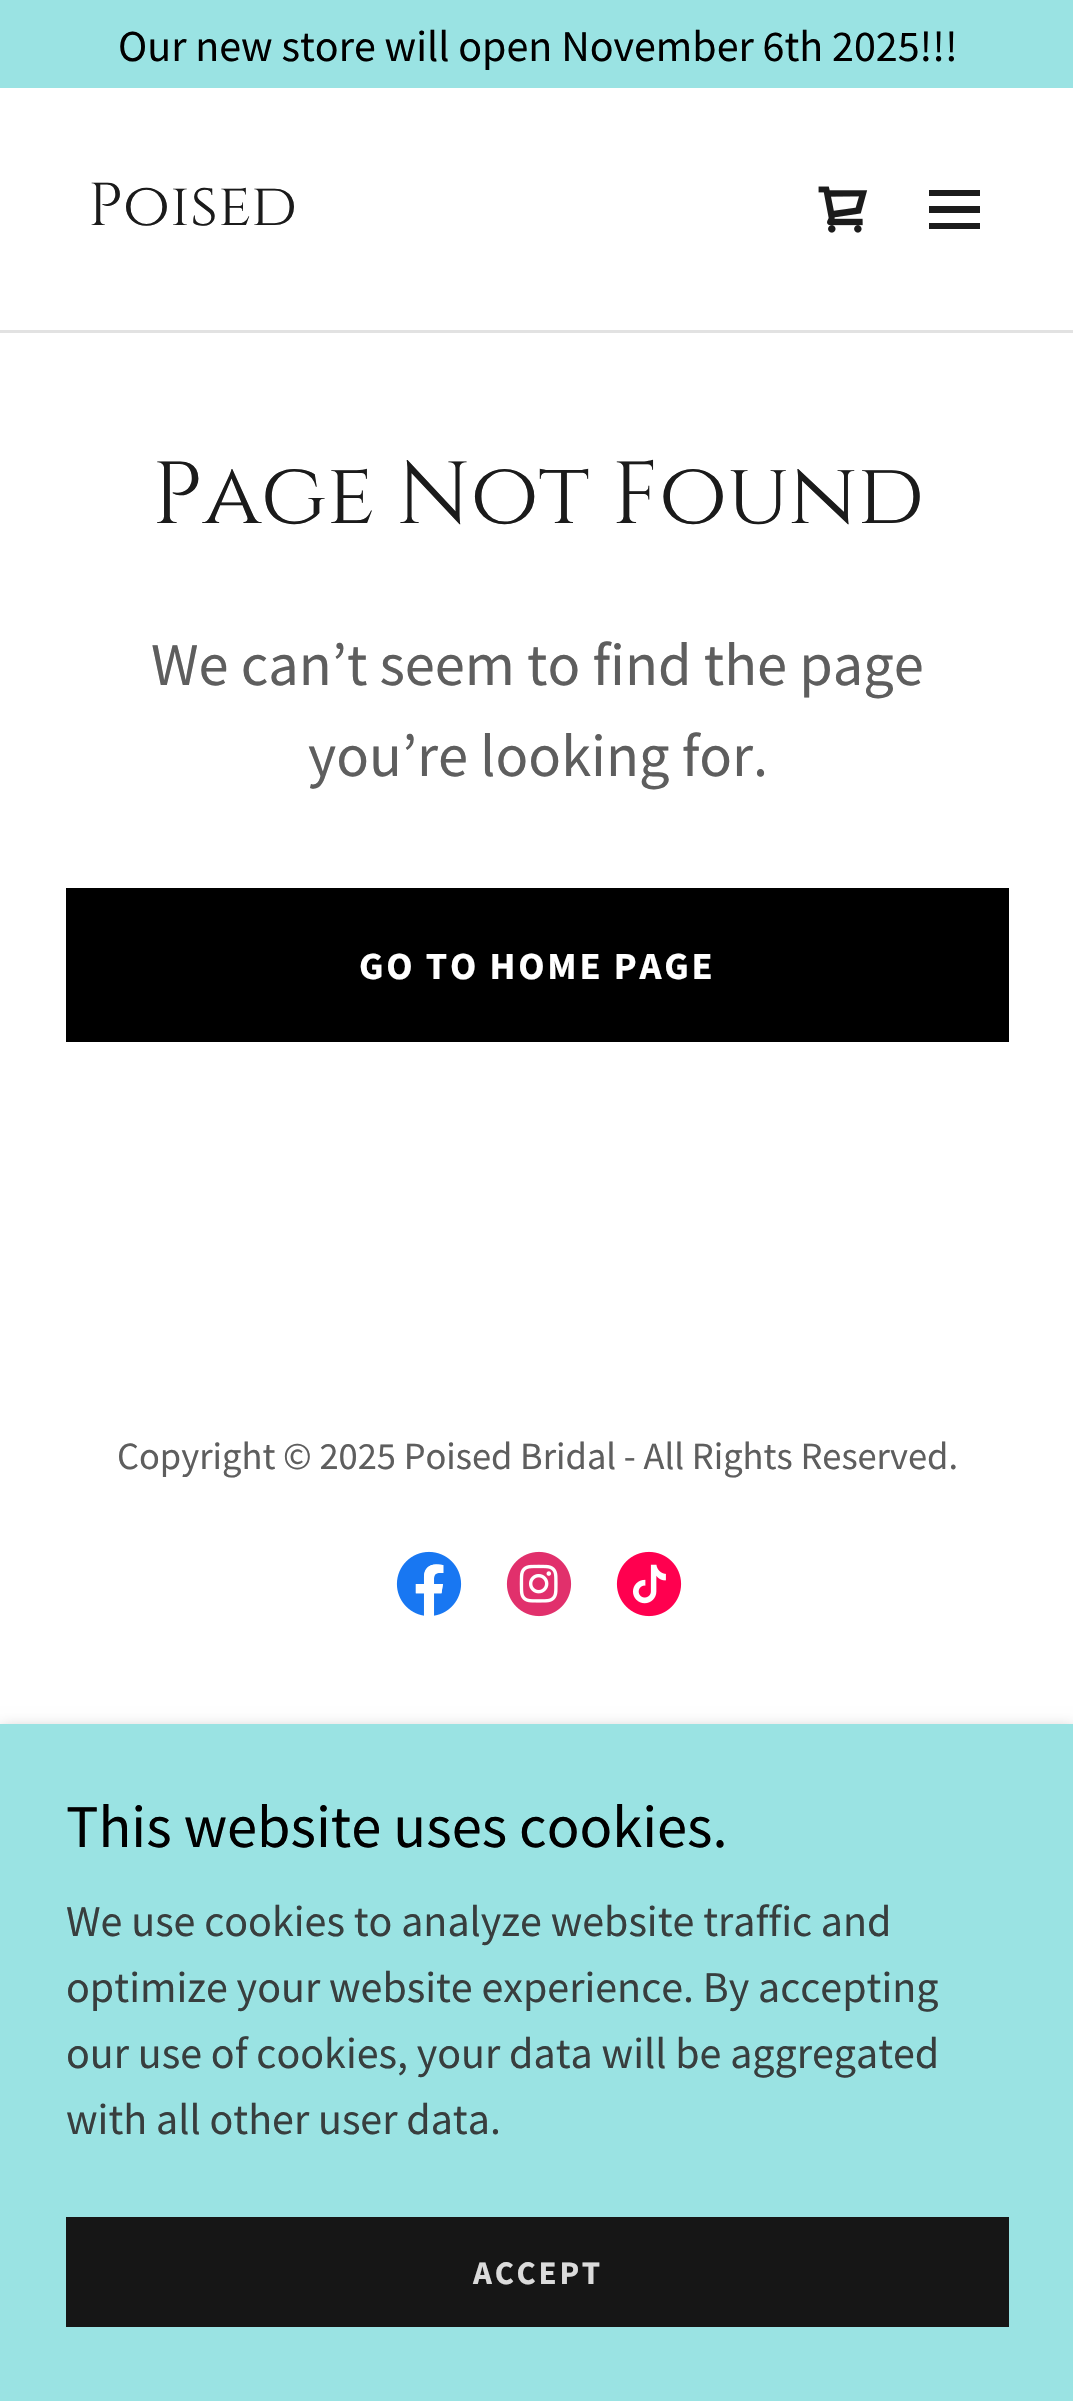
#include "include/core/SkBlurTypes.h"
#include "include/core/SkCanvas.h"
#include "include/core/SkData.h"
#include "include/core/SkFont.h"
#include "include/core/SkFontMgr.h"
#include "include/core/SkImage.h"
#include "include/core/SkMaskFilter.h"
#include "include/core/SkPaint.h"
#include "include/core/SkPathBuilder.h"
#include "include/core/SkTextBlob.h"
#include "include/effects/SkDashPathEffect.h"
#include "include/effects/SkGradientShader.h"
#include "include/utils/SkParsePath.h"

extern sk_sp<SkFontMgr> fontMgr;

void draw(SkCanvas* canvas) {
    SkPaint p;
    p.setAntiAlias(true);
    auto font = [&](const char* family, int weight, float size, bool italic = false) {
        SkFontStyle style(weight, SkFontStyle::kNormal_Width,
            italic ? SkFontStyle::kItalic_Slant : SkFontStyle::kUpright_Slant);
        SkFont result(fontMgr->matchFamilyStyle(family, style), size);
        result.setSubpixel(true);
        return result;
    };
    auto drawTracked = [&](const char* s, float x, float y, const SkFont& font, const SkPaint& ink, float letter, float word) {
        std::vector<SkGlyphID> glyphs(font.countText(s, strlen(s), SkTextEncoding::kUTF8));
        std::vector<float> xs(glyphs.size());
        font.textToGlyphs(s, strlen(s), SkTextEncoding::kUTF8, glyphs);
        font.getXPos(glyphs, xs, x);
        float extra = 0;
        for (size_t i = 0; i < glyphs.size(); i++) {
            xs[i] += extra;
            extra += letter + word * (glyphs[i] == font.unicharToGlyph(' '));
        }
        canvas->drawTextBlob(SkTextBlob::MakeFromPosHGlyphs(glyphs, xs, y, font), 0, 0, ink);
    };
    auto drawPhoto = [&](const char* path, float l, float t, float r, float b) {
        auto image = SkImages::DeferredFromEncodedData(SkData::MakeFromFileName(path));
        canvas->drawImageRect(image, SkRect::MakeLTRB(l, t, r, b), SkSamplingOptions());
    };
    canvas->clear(0xFFFFFFFF);
    p.setColor(0xFF9AE3E3);
    canvas->drawRect(SkRect::MakeLTRB(0, 0, 1073, 88), p);
    auto font1 = font("Source Sans Pro", 400, 44);
    p.setColor(0xFF000000);
    canvas->drawString("Our new store will open November 6th 2025!!!", 118, 61, font1, p);
    auto font2 = font("Cinzel", 400, 60.5f);
    p.setColor(0xFF1B1B1B);
    canvas->drawString("Poised", 88, 225, font2, p);
    drawPhoto("media/1.png", 818, 186, 868, 233);
    {
        const struct { float l, t, r, b; SkColor color; } items[] = {
            {929, 190, 980, 196, 0xFF1B1B1B},
            {929, 206, 980, 213, 0xFF1B1B1B},
            {929, 223, 980, 229, 0xFF1B1B1B},
            {0, 330, 1073, 333, 0xFFE2E2E2},
        };
        for (auto [l, t, r, b, color] : items) {
            p.setColor(color);
            canvas->drawRect(SkRect::MakeLTRB(l, t, r, b), p);
        }
    }
    auto font3 = font("Cinzel", 400, 88);
    p.setColor(0xFF1B1B1B);
    canvas->drawString("Page Not Found", 152, 523, font3, p);
    auto font4 = font("Source Sans Pro", 400, 60.5f);
    p.setColor(0xFF5E5E5E);
    canvas->drawString("We can’t seem to find the page", 151, 685, font4, p);
    canvas->drawString("you’re looking for.", 308, 776, font4, p);
    p.setColor(0xFF000000);
    canvas->drawRect(SkRect::MakeLTRB(66, 888, 1009, 1042), p);
    auto font5 = font("Source Sans Pro", 700, 38.5f);
    p.setColor(0xFFFFFFFF);
    drawTracked("GO TO HOME PAGE", 359, 979, font5, p, 2.75f, 0);
    auto font6 = font("Source Sans Pro", 400, 38.5f);
    p.setColor(0xFF5E5E5E);
    canvas->drawString("Copyright © 2025 Poised Bridal - All Rights Reserved.", 117, 1469, font6, p);
    drawPhoto("media/2.png", 396, 1551, 462, 1616);
    drawPhoto("media/3.png", 506, 1551, 572, 1617);
    drawPhoto("media/4.png", 616, 1551, 682, 1617);
    p.setColor(0x4D000000);
    p.setMaskFilter(SkMaskFilter::MakeBlur(kNormal_SkBlurStyle, 8));
    canvas->drawRect(SkRect::MakeLTRB(0, 1730, 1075, 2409), p);
    p.setMaskFilter(nullptr);
    p.setColor(0xFF9AE3E3);
    canvas->drawRect(SkRect::MakeLTRB(0, 1724, 1073, 2401), p);
    p.setColor(0xFF000000);
    canvas->drawString("This website uses cookies.", 66, 1847, font4, p);
    p.setColor(0xFF383E3E);
    {
        const struct { const char* s; float x, y; } items[] = {
            {"We use cookies to analyze website traffic and", 66, 1936},
            {"optimize your website experience. By accepting", 66, 2002},
            {"our use of cookies, your data will be aggregated", 66, 2068},
            {"with all other user data.", 66, 2134},
        };
        for (auto [s, x, y] : items) {
            canvas->drawString(s, x, y, font1, p);
        }
    }
    p.setColor(0xFF161616);
    canvas->drawRect(SkRect::MakeLTRB(66, 2217, 1009, 2327), p);
    auto font7 = font("Source Sans Pro", 700, 33);
    p.setColor(0xFFDBDBDB);
    drawTracked("ACCEPT", 473, 2284, font7, p, 2.75f, 0);
}
